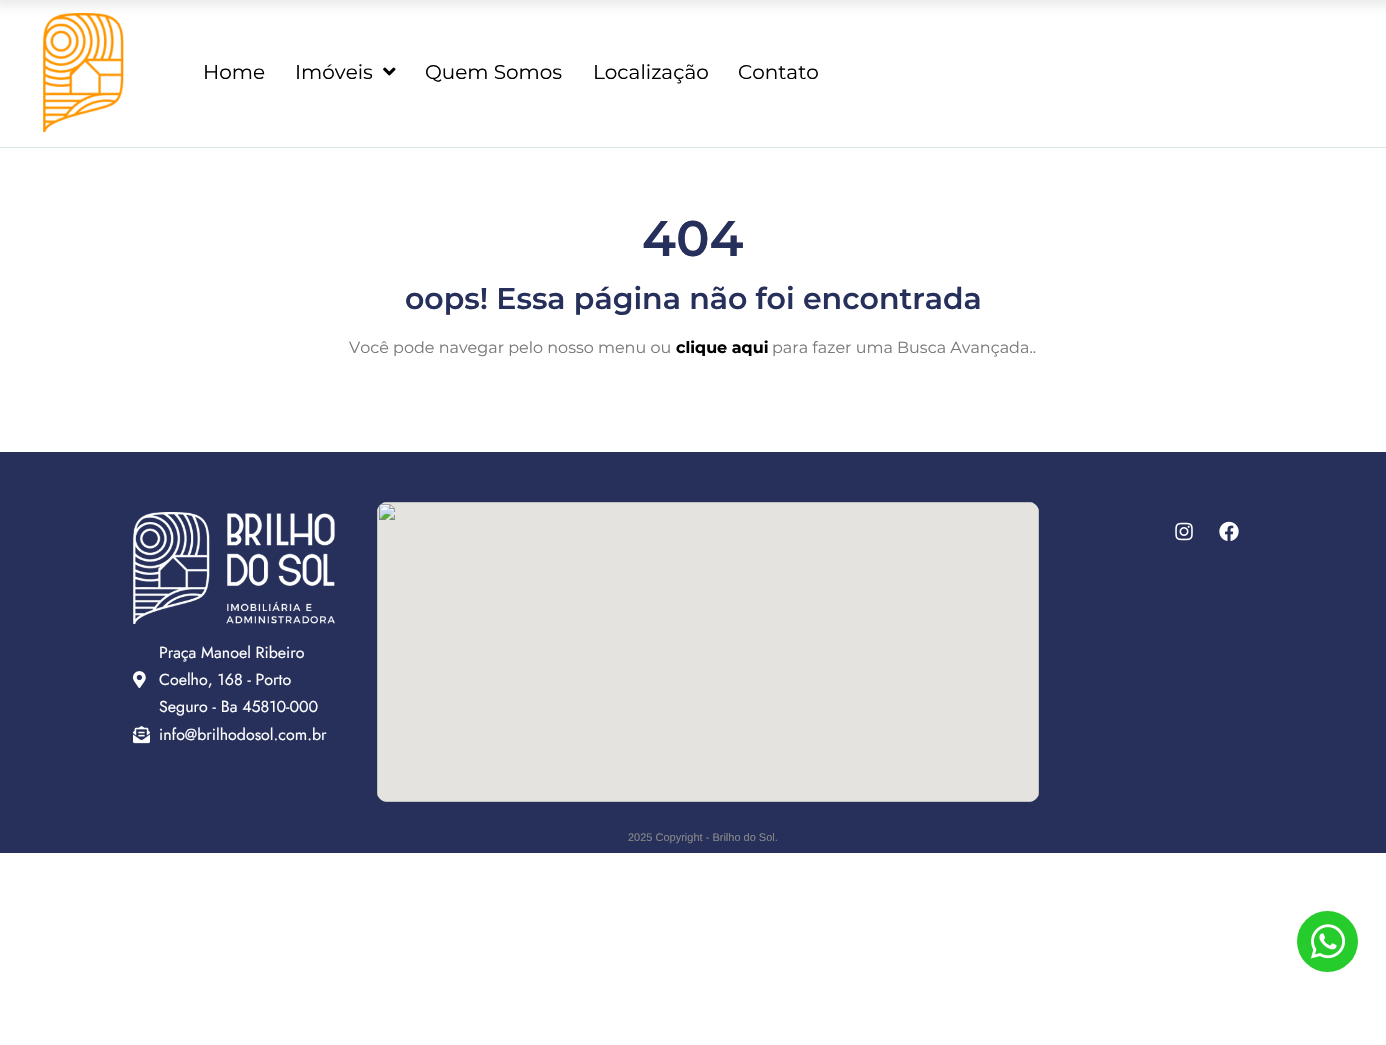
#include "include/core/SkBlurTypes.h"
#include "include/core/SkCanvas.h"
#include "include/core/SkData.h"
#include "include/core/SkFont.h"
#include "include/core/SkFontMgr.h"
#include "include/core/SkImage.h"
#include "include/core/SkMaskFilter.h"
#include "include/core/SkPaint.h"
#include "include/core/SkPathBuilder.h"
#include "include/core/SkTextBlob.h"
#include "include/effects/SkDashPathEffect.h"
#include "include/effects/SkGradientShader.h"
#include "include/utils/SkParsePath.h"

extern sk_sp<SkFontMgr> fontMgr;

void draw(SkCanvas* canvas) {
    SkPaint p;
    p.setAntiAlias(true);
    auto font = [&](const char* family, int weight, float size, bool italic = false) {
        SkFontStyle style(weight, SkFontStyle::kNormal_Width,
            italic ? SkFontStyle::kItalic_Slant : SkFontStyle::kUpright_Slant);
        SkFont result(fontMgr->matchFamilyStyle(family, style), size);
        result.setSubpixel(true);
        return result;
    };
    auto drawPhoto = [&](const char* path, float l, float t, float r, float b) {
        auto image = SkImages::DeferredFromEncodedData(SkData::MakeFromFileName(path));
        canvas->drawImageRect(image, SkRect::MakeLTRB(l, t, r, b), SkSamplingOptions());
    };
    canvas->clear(0xFFFFFFFF);
    drawPhoto("media/1.png", 43, 13, 124, 132);
    p.setColor(0x14000000);
    p.setMaskFilter(SkMaskFilter::MakeBlur(kNormal_SkBlurStyle, 5));
    canvas->drawRect(SkRect::MakeLTRB(-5, -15, 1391, 6), p);
    p.setMaskFilter(nullptr);
    p.setColor(0xFFD8E7DF);
    canvas->drawRect(SkRect::MakeLTRB(0, 147, 1386, 148), p);
    auto font1 = font("Montserrat", 400, 20);
    p.setColor(0xFF000000);
    canvas->drawString("Home", 203, 79, font1, p);
    canvas->drawString("Imóveis", 295, 79, font1, p);
    drawPhoto("media/2.png", 383, 67, 396, 76);
    {
        const struct { const char* s; float x, y; } items[] = {
            {"Quem Somos", 425, 79},
            {"Localização", 593, 79},
            {"Contato", 738, 79},
        };
        for (auto [s, x, y] : items) {
            canvas->drawString(s, x, y, font1, p);
        }
    }
    auto font2 = font("Montserrat", 600, 50);
    p.setColor(0xFF26305B);
    canvas->drawString("404", 642, 256, font2, p);
    auto font3 = font("Montserrat", 600, 30);
    canvas->drawString("oops! Essa página não foi encontrada", 405, 309, font3, p);
    auto font4 = font("Montserrat", 400, 16);
    p.setColor(0xFF7A7A7A);
    canvas->drawString("Você pode navegar pelo nosso menu ou", 349, 353, font4, p);
    auto font5 = font("Montserrat", 700, 16);
    p.setColor(0xFF000000);
    canvas->drawString("clique aqui", 676, 353, font5, p);
    p.setColor(0xFF7A7A7A);
    canvas->drawString("para fazer uma Busca Avançada..", 772, 353, font4, p);
    p.setColor(0xFF26305B);
    canvas->drawRect(SkRect::MakeLTRB(0, 452, 1386, 853), p);
    drawPhoto("media/3.png", 377, 502, 1039, 802);
    p.setColor(0xFF26CB2C);
    canvas->drawCircle(1327.5f, 941.5f, 30.5f, p);
    drawPhoto("media/4.png", 1311, 924, 1346, 959);
    drawPhoto("media/5.png", 1175, 522, 1193, 541);
    drawPhoto("media/6.png", 1219, 521, 1239, 541);
    drawPhoto("media/7.png", 133, 512, 335, 624);
    drawPhoto("media/8.png", 133, 671, 146, 689);
    auto font6 = font("Jost", 400, 16);
    p.setColor(0xFFFFFFFF);
    {
        const struct { const char* s; float x, y; } items[] = {
            {"Praça Manoel Ribeiro", 159, 658},
            {"Coelho, 168 - Porto", 159, 685},
            {"Seguro - Ba 45810-000", 159, 712},
        };
        for (auto [s, x, y] : items) {
            canvas->drawString(s, x, y, font6, p);
        }
    }
    drawPhoto("media/9.png", 133, 726, 150, 744);
    canvas->drawString("info@brilhodosol.com.br", 159, 740, font6, p);
    auto font7 = font("Liberation Sans", 400, 11);
    p.setColor(0xFF878787);
    canvas->drawString("2025 Copyright - Brilho do Sol.", 628, 841, font7, p);
}
